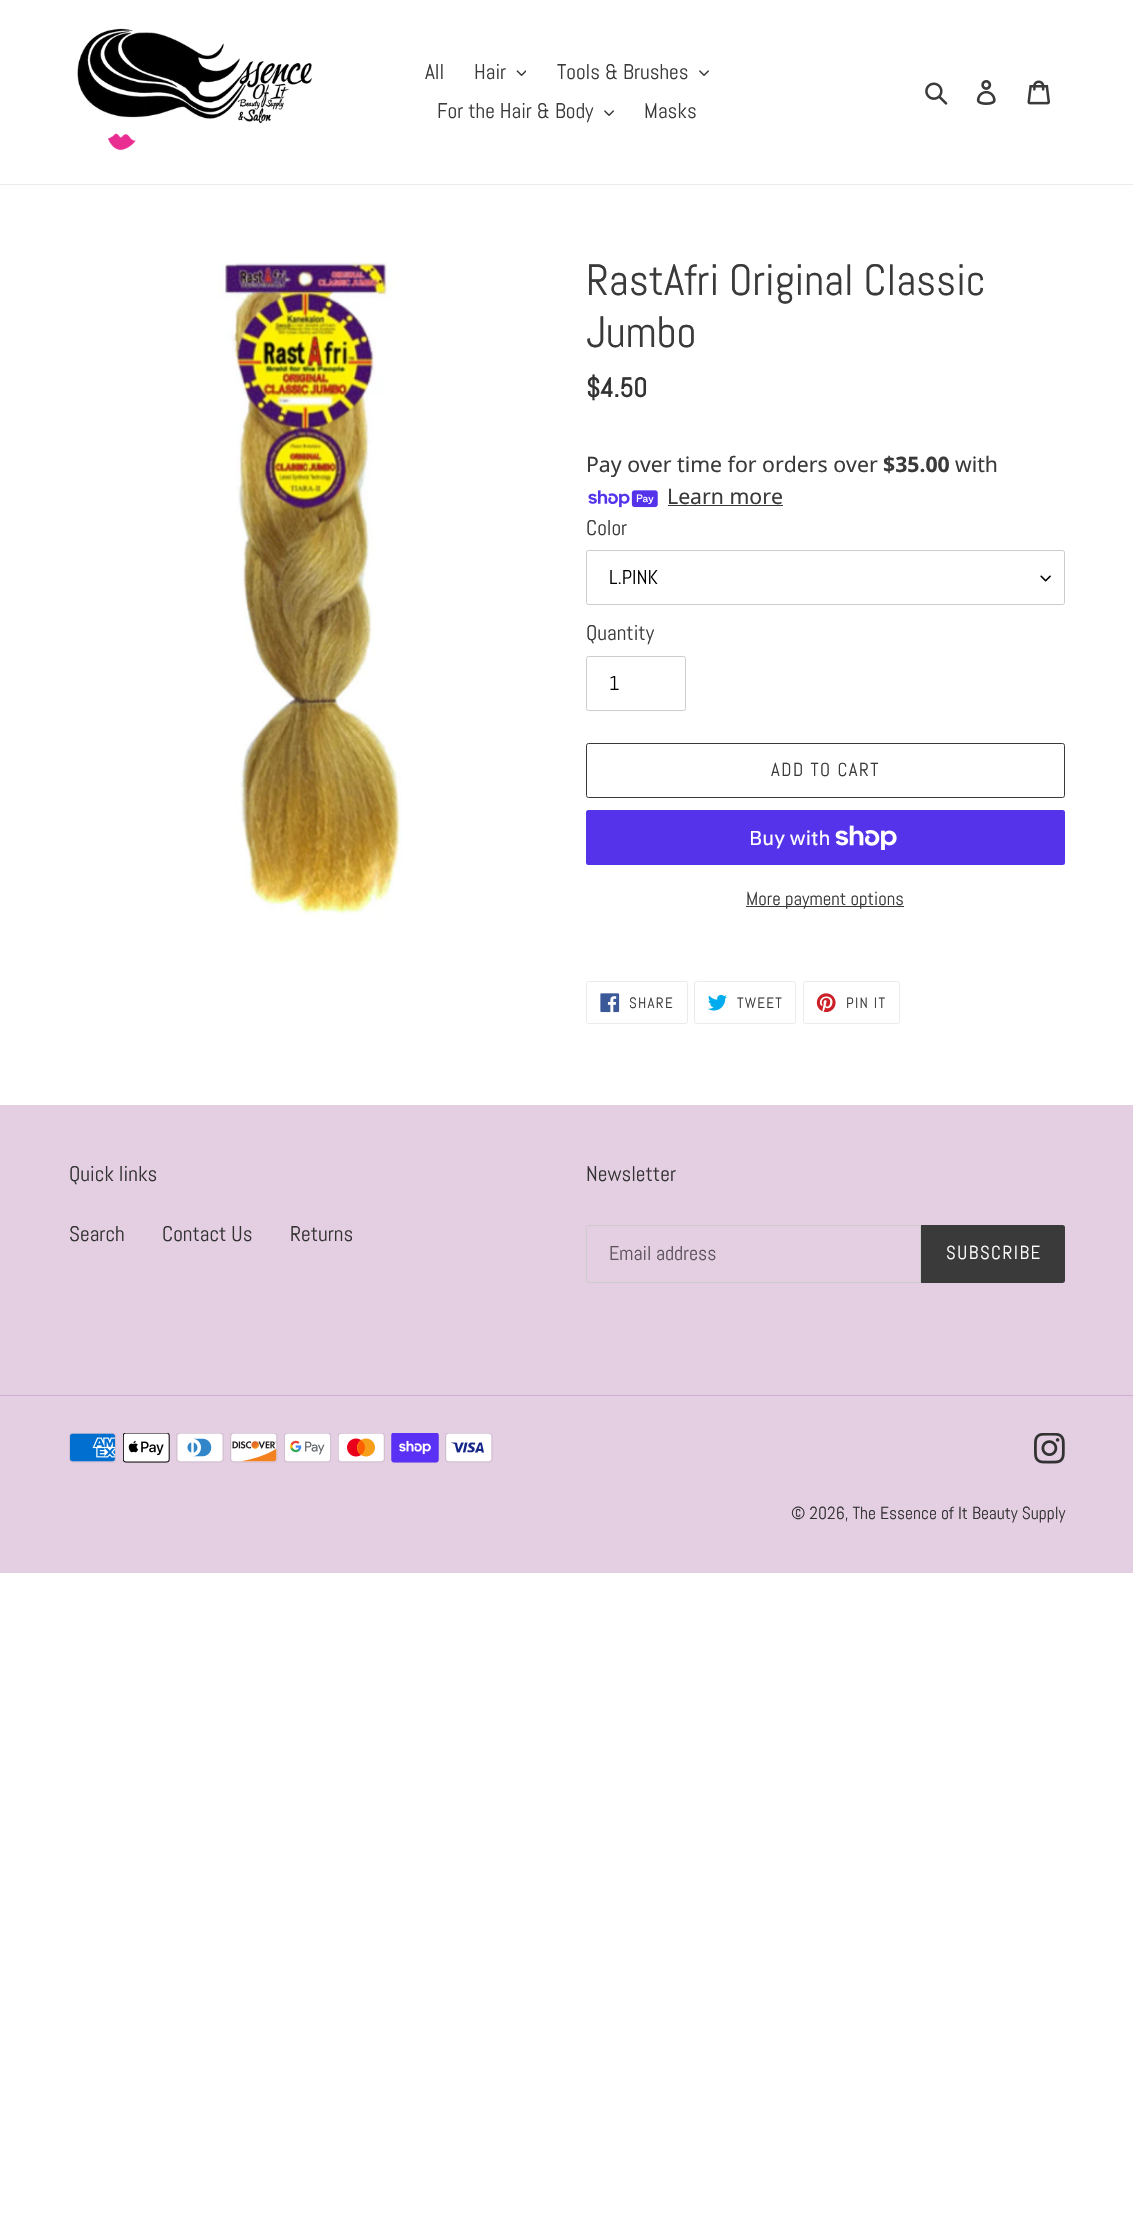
#include "include/core/SkBlurTypes.h"
#include "include/core/SkCanvas.h"
#include "include/core/SkData.h"
#include "include/core/SkFont.h"
#include "include/core/SkFontMgr.h"
#include "include/core/SkImage.h"
#include "include/core/SkMaskFilter.h"
#include "include/core/SkPaint.h"
#include "include/core/SkPathBuilder.h"
#include "include/core/SkTextBlob.h"
#include "include/effects/SkDashPathEffect.h"
#include "include/effects/SkGradientShader.h"
#include "include/utils/SkParsePath.h"

extern sk_sp<SkFontMgr> fontMgr;

void draw(SkCanvas* canvas) {
    SkPaint p;
    p.setAntiAlias(true);
    auto font = [&](const char* family, int weight, float size, bool italic = false) {
        SkFontStyle style(weight, SkFontStyle::kNormal_Width,
            italic ? SkFontStyle::kItalic_Slant : SkFontStyle::kUpright_Slant);
        SkFont result(fontMgr->matchFamilyStyle(family, style), size);
        result.setSubpixel(true);
        return result;
    };
    auto drawTracked = [&](const char* s, float x, float y, const SkFont& font, const SkPaint& ink, float letter, float word) {
        std::vector<SkGlyphID> glyphs(font.countText(s, strlen(s), SkTextEncoding::kUTF8));
        std::vector<float> xs(glyphs.size());
        font.textToGlyphs(s, strlen(s), SkTextEncoding::kUTF8, glyphs);
        font.getXPos(glyphs, xs, x);
        float extra = 0;
        for (size_t i = 0; i < glyphs.size(); i++) {
            xs[i] += extra;
            extra += letter + word * (glyphs[i] == font.unicharToGlyph(' '));
        }
        canvas->drawTextBlob(SkTextBlob::MakeFromPosHGlyphs(glyphs, xs, y, font), 0, 0, ink);
    };
    auto drawPhoto = [&](const char* path, float l, float t, float r, float b) {
        auto image = SkImages::DeferredFromEncodedData(SkData::MakeFromFileName(path));
        canvas->drawImageRect(image, SkRect::MakeLTRB(l, t, r, b), SkSamplingOptions());
    };
    canvas->clear(0xFFFFFFFF);
    p.setColor(0xFFEBEBEB);
    canvas->drawRect(SkRect::MakeLTRB(0, 184, 1133, 185), p);
    drawPhoto("media/1.png", 77, 28, 312, 151);
    auto font1 = font("Abel", 400, 21.25f);
    p.setColor(0xFF3A3A3A);
    canvas->drawString("All", 425, 79, font1, p);
    canvas->drawString("Hair", 474, 79, font1, p);
    drawPhoto("media/2.png", 516, 70, 526, 76);
    canvas->drawString("Tools & Brushes", 557, 79, font1, p);
    drawPhoto("media/3.png", 699, 70, 709, 76);
    canvas->drawString("For the Hair & Body", 437, 118, font1, p);
    drawPhoto("media/3.png", 604, 110, 614, 116);
    canvas->drawString("Masks", 644, 118, font1, p);
    drawPhoto("media/4.png", 925, 82, 948, 105);
    drawPhoto("media/5.png", 976, 80, 996, 105);
    drawPhoto("media/6.png", 1027, 80, 1050, 105);
    drawPhoto("media/7.png", 219, 262, 402, 917);
    auto font2 = font("Abel", 400, 43.75f);
    canvas->drawString("RastAfri Original Classic", 586, 295, font2, p);
    canvas->drawString("Jumbo", 586, 347, font2, p);
    auto font3 = font("Abel", 700, 27);
    p.setColor(0xFF333232);
    canvas->drawString("$4.50", 586, 397, font3, p);
    auto font4 = font("Noto Sans", 400, 21.25f);
    p.setColor(0xFF3A3A3A);
    canvas->drawString("Pay over time for orders over", 586, 472, font4, p);
    auto font5 = font("Noto Sans", 700, 21.25f);
    canvas->drawString("$35.00", 883, 472, font5, p);
    canvas->drawString("with", 955, 472, font4, p);
    drawPhoto("media/8.png", 588, 490, 658, 508);
    canvas->drawString("Learn more", 667, 504, font4, p);
    canvas->drawRect(SkRect::MakeLTRB(668, 505, 783, 506), p);
    canvas->drawString("Color", 586, 535, font1, p);
    drawPhoto("media/9.png", 1040, 575, 1051, 582);
    p.setStyle(SkPaint::kStroke_Style);
    p.setStrokeWidth(1);
    p.setColor(0xFFCCCCCC);
    canvas->drawRoundRect(SkRect::MakeLTRB(586.5f, 550.5f, 1064.5f, 604.5f), 2, 2, p);
    auto font6 = font("Abel", 400, 20);
    p.setStyle(SkPaint::kFill_Style);
    p.setColor(0xFF000000);
    canvas->drawString("L.PINK", 609, 584, font6, p);
    p.setColor(0xFF3A3A3A);
    canvas->drawString("Quantity", 586, 640, font1, p);
    p.setStyle(SkPaint::kStroke_Style);
    p.setColor(0xFFCCCCCC);
    canvas->drawRoundRect(SkRect::MakeLTRB(586.5f, 656.5f, 685.5f, 710.5f), 2, 2, p);
    p.setStyle(SkPaint::kFill_Style);
    p.setColor(0xFF000000);
    canvas->drawString("1", 609, 690, font6, p);
    p.setStyle(SkPaint::kStroke_Style);
    p.setColor(0xFF3A3A3A);
    canvas->drawRoundRect(SkRect::MakeLTRB(586.5f, 743.5f, 1064.5f, 797.5f), 2, 2, p);
    auto font7 = font("Abel", 400, 18.75f);
    p.setStyle(SkPaint::kFill_Style);
    drawTracked("ADD TO CART", 771, 776, font7, p, 1.5f, 0);
    p.setColor(0xFF5433EB);
    canvas->drawRoundRect(SkRect::MakeLTRB(586, 810, 1065, 865), 2.5f, 2.5f, p);
    auto font8 = font("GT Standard", 400, 20);
    p.setColor(0xFFFFFFFF);
    canvas->drawString("Buy with", 749, 845, font8, p);
    drawPhoto("media/10.png", 835, 825, 897, 850);
    p.setColor(0xFF3A3A3A);
    canvas->drawRect(SkRect::MakeLTRB(746, 906, 904, 907), p);
    canvas->drawString("More payment options", 746, 905, font7, p);
    p.setStyle(SkPaint::kStroke_Style);
    p.setColor(0xFFEBEBEB);
    canvas->drawRoundRect(SkRect::MakeLTRB(586.5f, 981.5f, 687.5f, 1023.5f), 2, 2, p);
    drawPhoto("media/11.png", 600, 993, 620, 1013);
    auto font9 = font("Abel", 400, 15);
    p.setStyle(SkPaint::kFill_Style);
    p.setColor(0xFF3A3A3A);
    drawTracked("SHARE", 629, 1008, font9, p, 1.25f, 0);
    p.setStyle(SkPaint::kStroke_Style);
    p.setColor(0xFFEBEBEB);
    canvas->drawRoundRect(SkRect::MakeLTRB(694.5f, 981.5f, 795.5f, 1023.5f), 2, 2, p);
    drawPhoto("media/12.png", 708, 994, 727, 1011);
    p.setStyle(SkPaint::kFill_Style);
    p.setColor(0xFF3A3A3A);
    drawTracked("TWEET", 737, 1008, font9, p, 1.25f, 0);
    p.setStyle(SkPaint::kStroke_Style);
    p.setColor(0xFFEBEBEB);
    canvas->drawRoundRect(SkRect::MakeLTRB(803.5f, 981.5f, 899.5f, 1023.5f), 2, 2, p);
    drawPhoto("media/13.png", 816, 993, 836, 1013);
    p.setStyle(SkPaint::kFill_Style);
    p.setColor(0xFF3A3A3A);
    drawTracked("PIN IT", 846, 1008, font9, p, 1.25f, 0);
    p.setColor(0xFFE3CEE2);
    canvas->drawRect(SkRect::MakeLTRB(0, 1105, 1133, 1573), p);
    p.setColor(0xFF333232);
    {
        const struct { const char* s; float x, y; } items[] = {
            {"Quick links", 69, 1181},
            {"Search", 69, 1241},
            {"Contact Us", 162, 1241},
            {"Returns", 290, 1241},
            {"Newsletter", 586, 1181},
        };
        for (auto [s, x, y] : items) {
            canvas->drawString(s, x, y, font1, p);
        }
    }
    p.setStyle(SkPaint::kStroke_Style);
    p.setColor(0xFFCCCCCC);
    canvas->drawPath(SkPathBuilder().moveTo(588.5f, 1225.5f).lineTo(920.5f, 1225.5f).lineTo(920.5f, 1282.5f).lineTo(588.5f, 1282.5f).cubicTo(587.5f, 1282.5f, 586.5f, 1281.5f, 586.5f, 1280.5f).lineTo(586.5f, 1227.5f).cubicTo(586.5f, 1226.5f, 587.5f, 1225.5f, 588.5f, 1225.5f).close().detach(), p);
    p.setStyle(SkPaint::kFill_Style);
    p.setColor(0xFF5B525A);
    canvas->drawString("Email address", 609, 1260, font6, p);
    p.setColor(0xFF3A3A3A);
    canvas->drawPath(SkPathBuilder().moveTo(921, 1225).lineTo(1062.5f, 1225).cubicTo(1064, 1225, 1065, 1226, 1065, 1227.5f).lineTo(1065, 1280.5f).cubicTo(1065, 1282, 1064, 1283, 1062.5f, 1283).lineTo(921, 1283).close().detach(), p);
    p.setColor(0xFFFFFFFF);
    drawTracked("SUBSCRIBE", 946, 1259, font7, p, 1.5f, 0);
    p.setColor(0xFFD0AECF);
    canvas->drawRect(SkRect::MakeLTRB(0, 1395, 1133, 1396), p);
    drawPhoto("media/14.png", 69, 1433, 116, 1463);
    drawPhoto("media/15.png", 123, 1433, 170, 1463);
    drawPhoto("media/16.png", 176, 1433, 224, 1463);
    drawPhoto("media/17.png", 230, 1433, 278, 1463);
    drawPhoto("media/18.png", 284, 1433, 331, 1463);
    drawPhoto("media/19.png", 338, 1433, 385, 1463);
    drawPhoto("media/20.png", 391, 1433, 439, 1463);
    drawPhoto("media/21.png", 445, 1433, 493, 1463);
    drawPhoto("media/22.png", 1034, 1433, 1065, 1464);
    auto font10 = font("Abel", 400, 17.5f);
    p.setColor(0xFF333232);
    canvas->drawString("© 2026, The Essence of It Beauty Supply", 791, 1519, font10, p);
}
